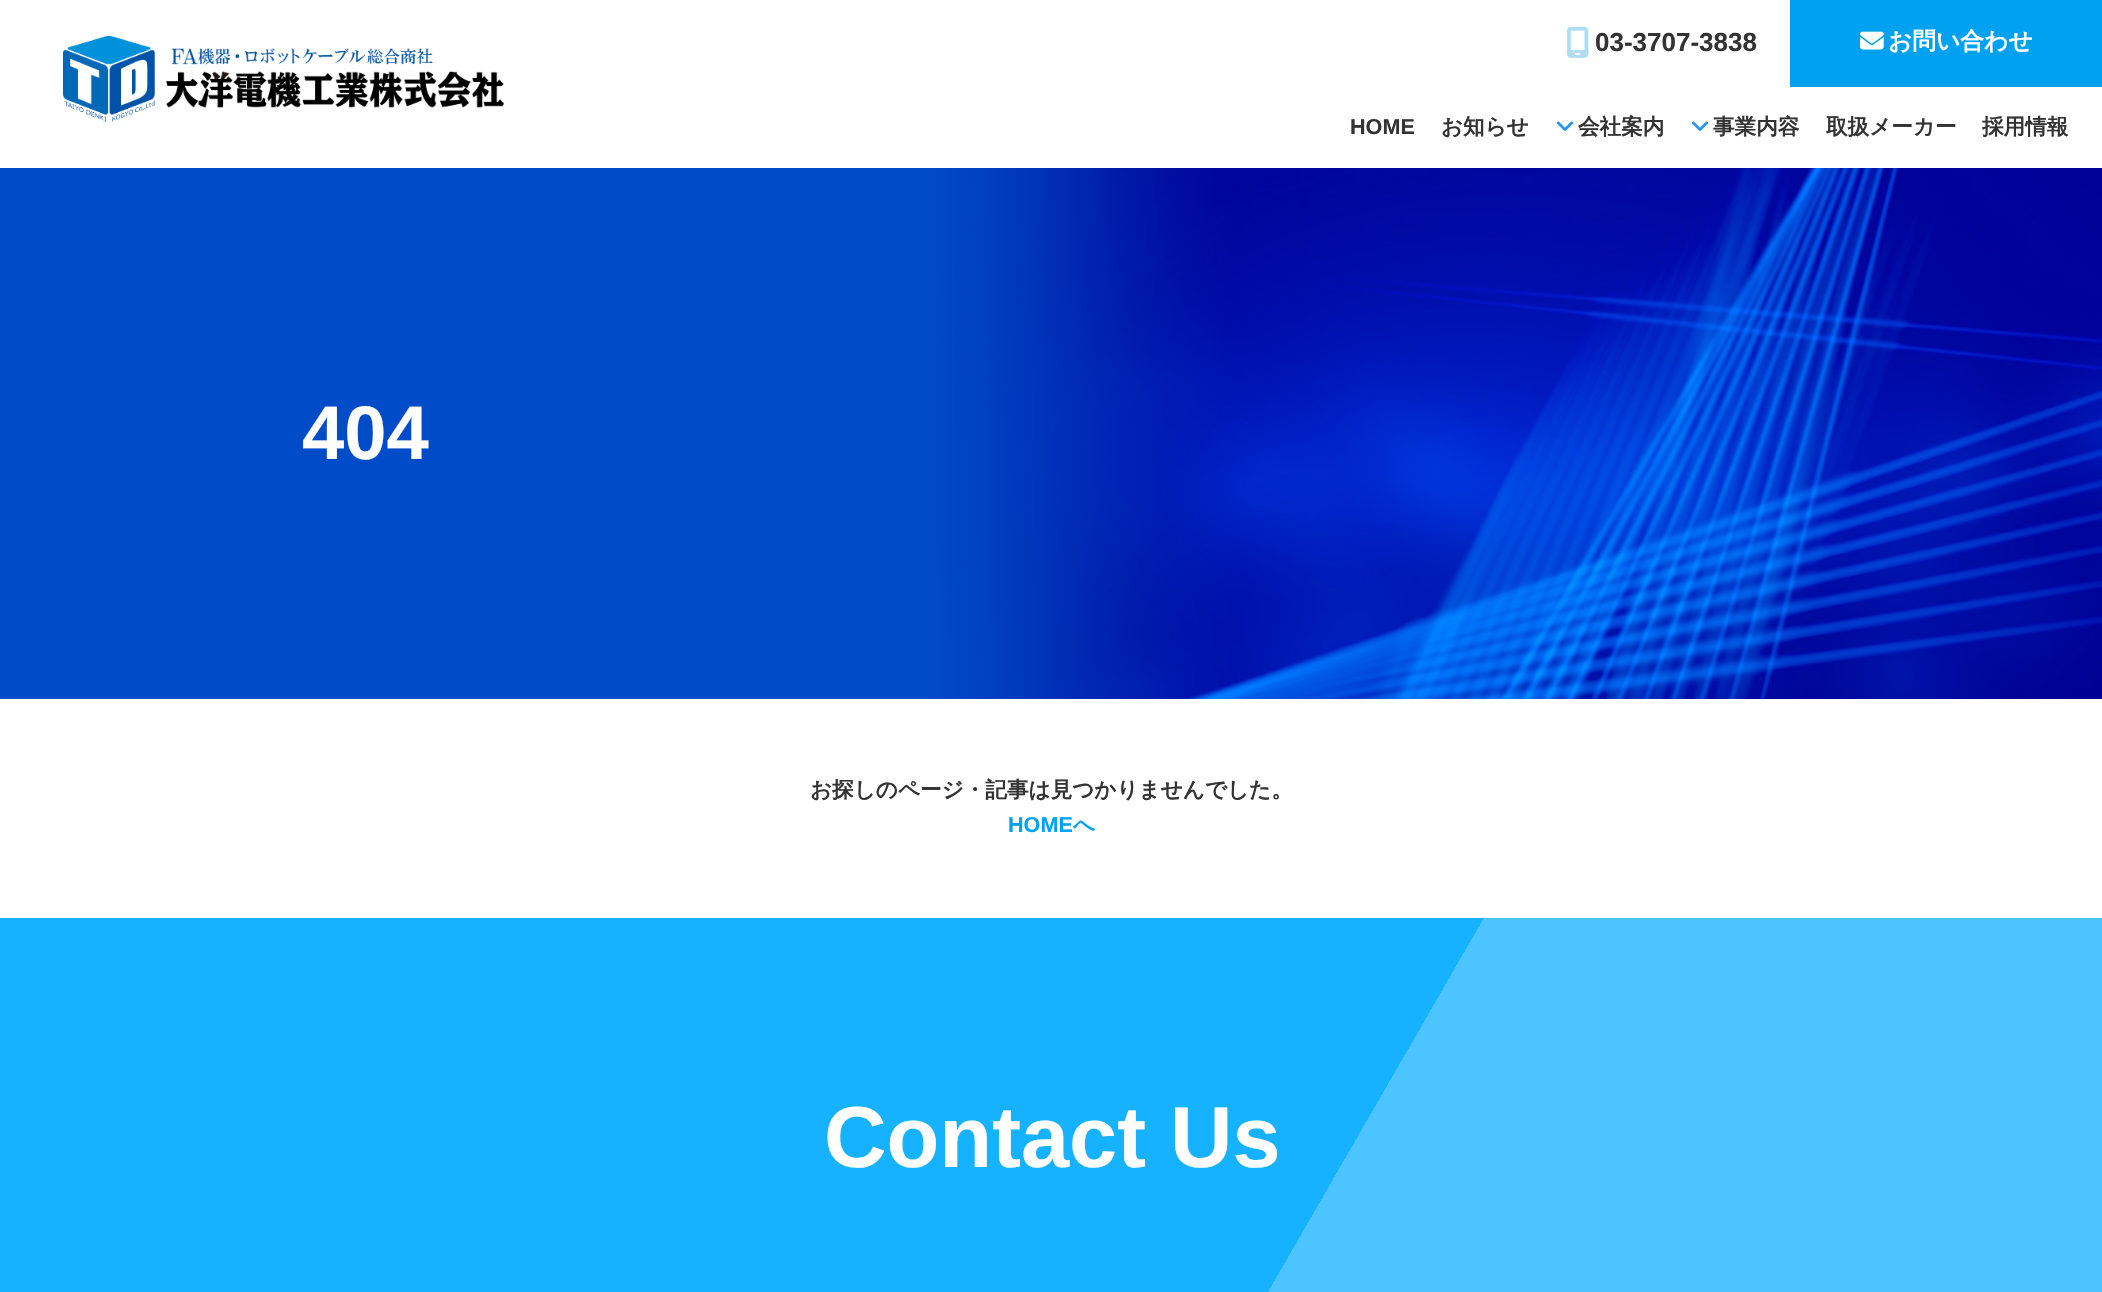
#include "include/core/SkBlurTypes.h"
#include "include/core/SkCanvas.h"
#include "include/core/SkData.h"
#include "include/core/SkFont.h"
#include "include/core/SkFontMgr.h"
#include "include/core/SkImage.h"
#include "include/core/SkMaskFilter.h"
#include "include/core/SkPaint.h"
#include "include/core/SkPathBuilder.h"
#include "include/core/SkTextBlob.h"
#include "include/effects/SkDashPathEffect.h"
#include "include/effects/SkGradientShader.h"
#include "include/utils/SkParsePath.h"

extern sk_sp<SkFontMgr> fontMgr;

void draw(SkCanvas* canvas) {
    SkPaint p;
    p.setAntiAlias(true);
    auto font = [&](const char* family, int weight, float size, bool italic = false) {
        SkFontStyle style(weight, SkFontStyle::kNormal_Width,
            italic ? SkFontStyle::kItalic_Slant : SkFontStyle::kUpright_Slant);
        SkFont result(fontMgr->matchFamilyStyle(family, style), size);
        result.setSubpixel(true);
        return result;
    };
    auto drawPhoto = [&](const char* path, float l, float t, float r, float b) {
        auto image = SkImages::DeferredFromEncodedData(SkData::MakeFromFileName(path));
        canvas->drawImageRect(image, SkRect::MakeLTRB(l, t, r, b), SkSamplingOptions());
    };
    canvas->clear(0xFFFFFFFF);
    drawPhoto("media/1.png", 63, 36, 504, 122);
    drawPhoto("media/2.png", 1567, 26, 1589, 58);
    auto font1 = font("Liberation Sans", 700, 26);
    p.setColor(0xFF333333);
    canvas->drawString("03-3707-3838", 1595, 51, font1, p);
    p.setColor(0xFF00A1F0);
    canvas->drawRect(SkRect::MakeLTRB(1790, 0, 2102, 87), p);
    drawPhoto("media/3.png", 1860, 31, 1884, 50);
    auto font2 = font("WenQuanYi Zen Hei", 700, 23.75f);
    p.setColor(0xFFFFFFFF);
    canvas->drawString("お問い合わせ", 1888, 49, font2, p);
    auto font3 = font("Liberation Sans", 700, 21.6f);
    p.setColor(0xFF333333);
    canvas->drawString("HOME", 1350, 134, font3, p);
    auto font4 = font("WenQuanYi Zen Hei", 700, 21.6f);
    canvas->drawString("お知らせ", 1441, 134, font4, p);
    drawPhoto("media/4.png", 1556, 121, 1573, 131);
    canvas->drawString("会社案内", 1578, 134, font4, p);
    drawPhoto("media/4.png", 1691, 121, 1708, 131);
    {
        const struct { const char* s; float x, y; } items[] = {
            {"事業内容", 1713, 134},
            {"取扱メーカー", 1826, 134},
            {"採用情報", 1982, 134},
        };
        for (auto [s, x, y] : items) {
            canvas->drawString(s, x, y, font4, p);
        }
    }
    drawPhoto("media/5.png", 0, 168, 2102, 699);
    auto font5 = font("Liberation Sans", 700, 76);
    p.setColor(0xFFFFFFFF);
    canvas->drawString("404", 302, 459, font5, p);
    p.setColor(0xFF333333);
    canvas->drawString("お探しのページ・記事は見つかりませんでした。", 810, 797, font4, p);
    p.setColor(0xFF00A1F0);
    canvas->drawString("HOME", 1008, 832, font3, p);
    canvas->drawString("へ", 1073, 832, font4, p);
    {
        const SkColor colors[] = {0xFF16B2FF, 0xFF16B2FF, 0xFF4CC4FF, 0xFF4CC4FF};
        const float stops[] = {0, 0.6f, 0.6f, 1};
        const SkPoint ends[] = {{124, 703}, {1979, 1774}};
        p.setShader(SkGradientShader::MakeLinear(ends, colors, stops, 4, SkTileMode::kClamp));
        p.setAlpha(255);
    }
    canvas->drawRect(SkRect::MakeLTRB(0, 918, 2102, 1292), p);
    auto font6 = font("Liberation Sans", 700, 86.5f);
    p.setShader(nullptr);
    p.setColor(0xFFFFFFFF);
    canvas->drawString("Contact Us", 824, 1167, font6, p);
}
